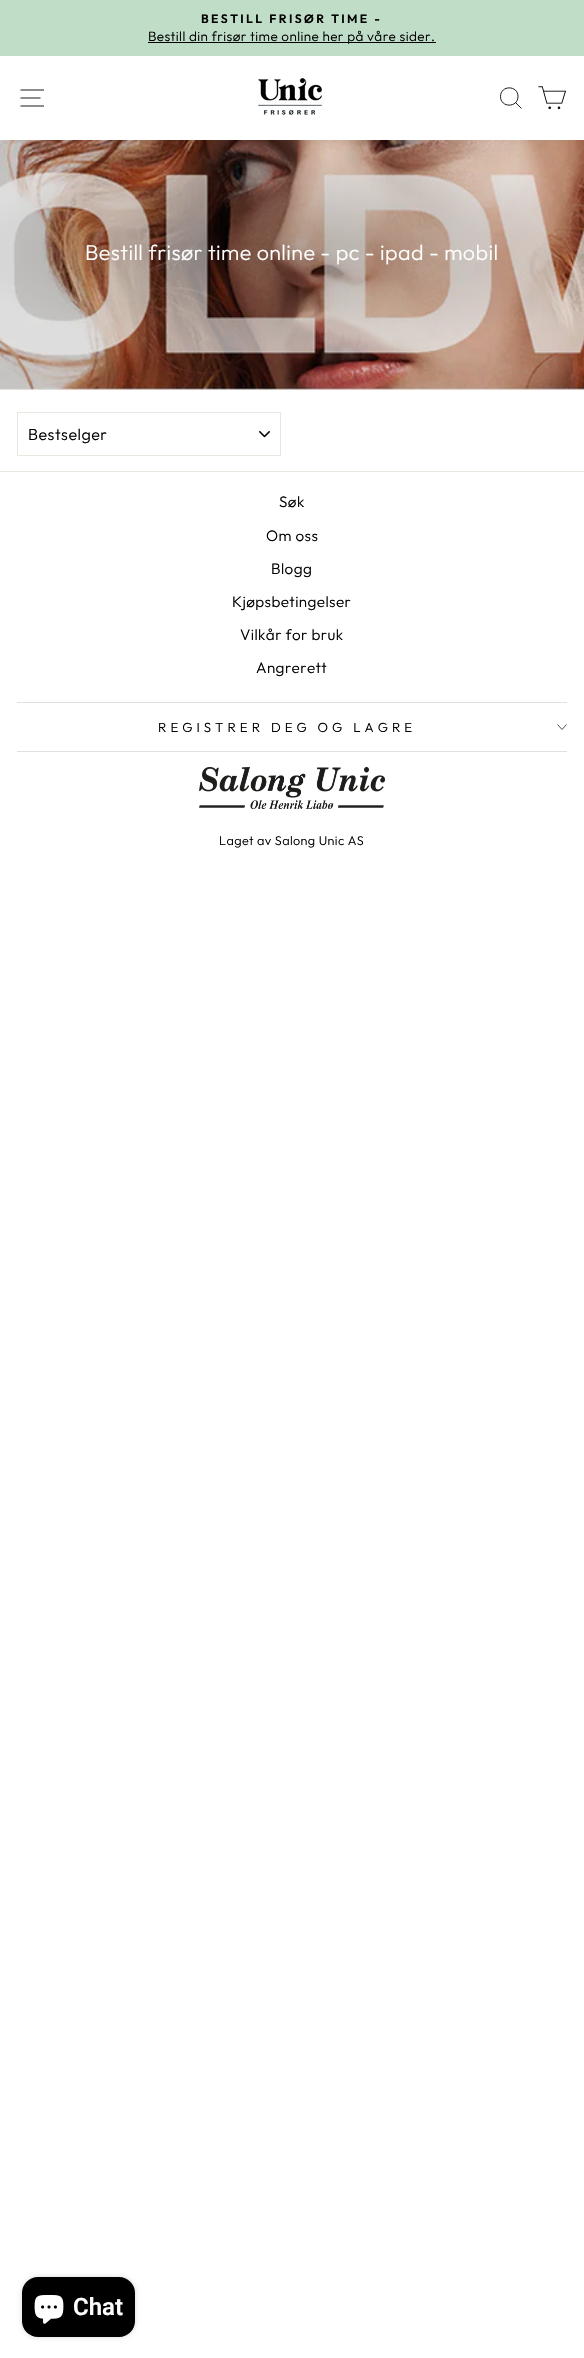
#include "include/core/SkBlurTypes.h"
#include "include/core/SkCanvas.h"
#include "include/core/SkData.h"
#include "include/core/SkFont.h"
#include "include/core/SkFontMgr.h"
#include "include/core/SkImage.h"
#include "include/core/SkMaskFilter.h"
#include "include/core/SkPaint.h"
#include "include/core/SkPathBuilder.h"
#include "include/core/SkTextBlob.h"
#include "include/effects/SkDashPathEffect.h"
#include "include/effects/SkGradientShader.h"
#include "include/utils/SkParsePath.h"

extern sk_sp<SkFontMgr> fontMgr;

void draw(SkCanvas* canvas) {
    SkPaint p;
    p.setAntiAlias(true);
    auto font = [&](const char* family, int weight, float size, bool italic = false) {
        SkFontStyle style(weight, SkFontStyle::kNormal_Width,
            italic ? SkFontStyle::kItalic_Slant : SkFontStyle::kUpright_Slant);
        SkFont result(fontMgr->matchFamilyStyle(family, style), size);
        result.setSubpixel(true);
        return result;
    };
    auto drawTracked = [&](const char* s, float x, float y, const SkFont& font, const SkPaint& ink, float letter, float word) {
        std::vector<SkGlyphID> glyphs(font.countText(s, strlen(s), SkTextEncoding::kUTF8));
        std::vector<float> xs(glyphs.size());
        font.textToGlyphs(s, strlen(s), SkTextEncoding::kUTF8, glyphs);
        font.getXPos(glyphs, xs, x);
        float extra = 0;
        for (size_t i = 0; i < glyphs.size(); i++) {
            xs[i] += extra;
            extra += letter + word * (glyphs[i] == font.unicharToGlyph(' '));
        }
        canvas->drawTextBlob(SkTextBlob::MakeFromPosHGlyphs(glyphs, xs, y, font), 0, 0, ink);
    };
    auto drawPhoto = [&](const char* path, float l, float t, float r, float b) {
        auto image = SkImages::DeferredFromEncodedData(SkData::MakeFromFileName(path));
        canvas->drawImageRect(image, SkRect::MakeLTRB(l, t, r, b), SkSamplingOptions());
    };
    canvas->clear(0xFFFFFFFF);
    p.setColor(0xFFC0DDC7);
    canvas->drawRect(SkRect::MakeLTRB(0, 0, 584, 56), p);
    auto font1 = font("Outfit", 600, 12.2f);
    p.setColor(0xFF000000);
    drawTracked("BESTILL FRISØR TIME -", 201, 23, font1, p, 2.4f, 0);
    canvas->drawRect(SkRect::MakeLTRB(148, 42, 436, 43), p);
    auto font2 = font("Outfit", 300, 13.5f);
    drawTracked("Bestill din frisør time online her på våre sider.", 148, 41, font2, p, 0.4f, 0);
    p.setStyle(SkPaint::kStroke_Style);
    p.setStrokeWidth(0.9f);
    canvas->drawPath(SkPathBuilder().moveTo(20.5f, 90).lineTo(44, 90).moveTo(20.5f, 98).lineTo(40.5f, 98).moveTo(20.5f, 106).lineTo(44, 106).detach(), p);
    drawPhoto("media/1.png", 258, 78, 322, 115);
    canvas->drawPath(SkPathBuilder().moveTo(518, 96.5f).cubicTo(518, 108, 500.5f, 108, 500.5f, 96.5f).cubicTo(500.5f, 85, 518, 85, 518, 96.5f).close().moveTo(521.5f, 108.5f).lineTo(515.5f, 102.5f).detach(), p);
    drawPhoto("media/2.png", 538, 86, 566, 110);
    drawPhoto("media/3.png", 0, 140, 584, 390);
    auto font3 = font("Outfit", 300, 21.5f);
    p.setStyle(SkPaint::kFill_Style);
    p.setColor(0xFFFFFFFF);
    drawTracked("Bestill frisør time online - pc - ipad - mobil", 85, 260, font3, p, 0.4f, 0);
    drawPhoto("media/4.png", 259, 431, 270, 438);
    p.setStyle(SkPaint::kStroke_Style);
    p.setStrokeWidth(1);
    p.setColor(0xFFE8E8E1);
    canvas->drawRect(SkRect::MakeLTRB(17.5f, 412.5f, 280.5f, 455.5f), p);
    auto font4 = font("Outfit", 300, 16);
    p.setStyle(SkPaint::kFill_Style);
    p.setColor(0xFF000000);
    drawTracked("Bestselger", 28, 440, font4, p, 0.5f, 0);
    p.setColor(0xFFE8E8E1);
    canvas->drawRect(SkRect::MakeLTRB(0, 471, 584, 472), p);
    auto font5 = font("Outfit", 300, 15.25f);
    p.setColor(0xFF000000);
    {
        const struct { const char* s; float x, y; } items[] = {
            {"Søk", 279, 507},
            {"Om oss", 266, 541},
            {"Blogg", 271, 574},
            {"Kjøpsbetingelser", 232, 607},
            {"Vilkår for bruk", 240, 640},
            {"Angrerett", 256, 673},
        };
        for (auto [s, x, y] : items) {
            drawTracked(s, x, y, font5, p, 0.4f, 0);
        }
    }
    p.setColor(0xFFE0E0E0);
    canvas->drawRect(SkRect::MakeLTRB(17, 702, 567, 703), p);
    auto font6 = font("Outfit", 300, 13.25f);
    p.setColor(0xFF000000);
    drawTracked("REGISTRER DEG OG LAGRE", 158, 732, font6, p, 4, 0);
    p.setStyle(SkPaint::kStroke_Style);
    p.setStrokeWidth(0.7f);
    canvas->drawPath(SkPathBuilder().moveTo(557.5f, 724.5f).lineTo(562, 729.5f).lineTo(566.5f, 724.5f).detach(), p);
    p.setStyle(SkPaint::kFill_Style);
    p.setColor(0xFFE0E0E0);
    canvas->drawRect(SkRect::MakeLTRB(17, 751, 567, 752), p);
    drawPhoto("media/5.png", 199, 767, 385, 809);
    auto font7 = font("Outfit", 300, 12.6f);
    p.setColor(0xFF000000);
    drawTracked("Laget av Salong Unic AS", 219, 845, font7, p, 0.4f, 0);
    p.setColor(0x26000000);
    p.setMaskFilter(SkMaskFilter::MakeBlur(kNormal_SkBlurStyle, 2.5f));
    canvas->drawRoundRect(SkRect::MakeLTRB(22, 2277, 135, 2337), 16, 16, p);
    p.setMaskFilter(nullptr);
    p.setColor(0xFF000000);
    canvas->drawRoundRect(SkRect::MakeLTRB(22, 2277, 135, 2337), 16, 16, p);
    drawPhoto("media/6.png", 34, 2295, 64, 2324);
    auto font8 = font("Roboto", 600, 24);
    p.setColor(0xFFFFFFFF);
    canvas->drawString("Chat", 73, 2315, font8, p);
}
